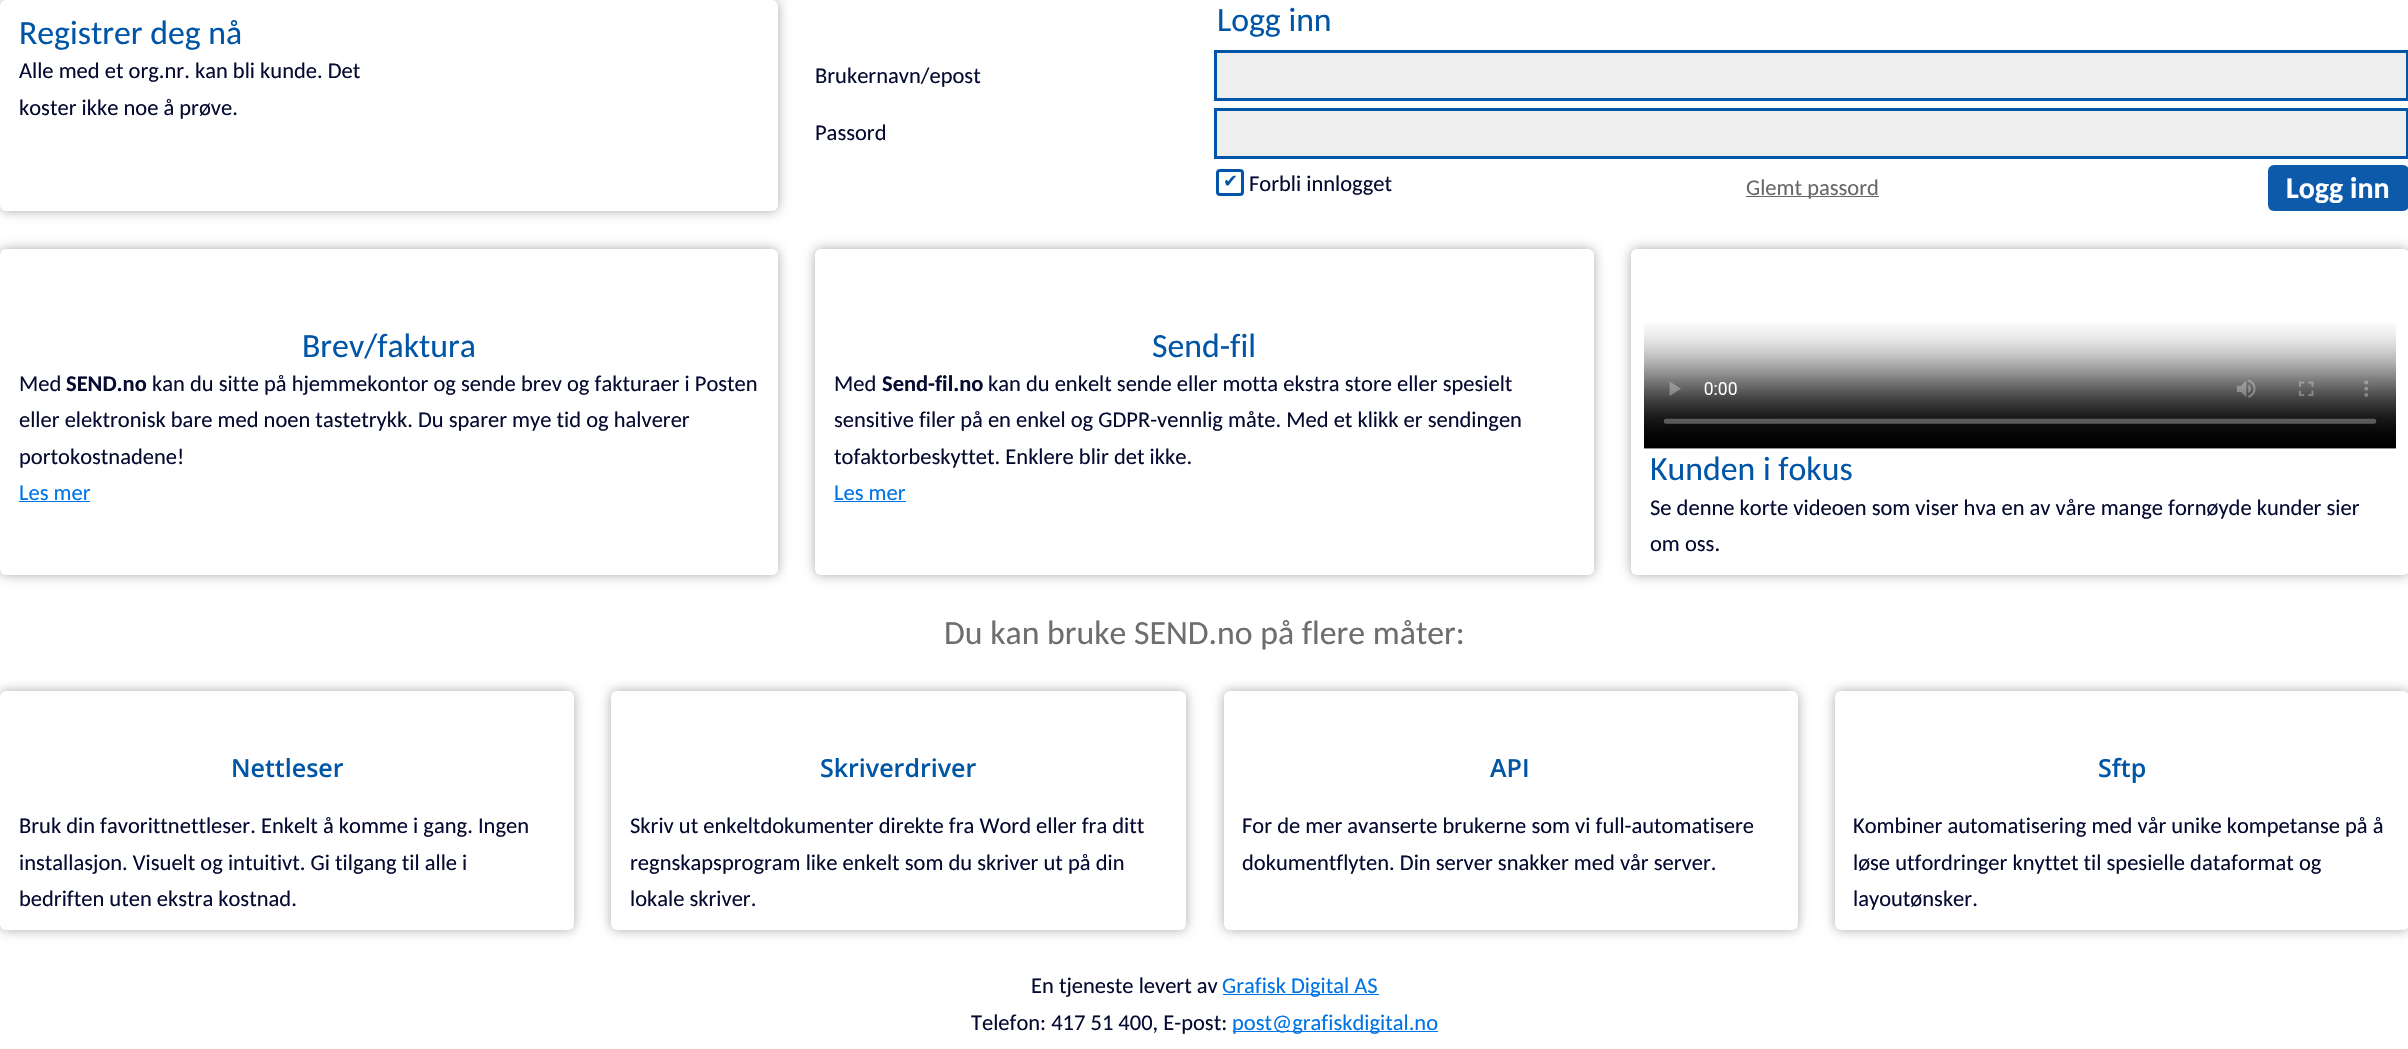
#include "include/core/SkBlurTypes.h"
#include "include/core/SkCanvas.h"
#include "include/core/SkData.h"
#include "include/core/SkFont.h"
#include "include/core/SkFontMgr.h"
#include "include/core/SkImage.h"
#include "include/core/SkMaskFilter.h"
#include "include/core/SkPaint.h"
#include "include/core/SkPathBuilder.h"
#include "include/core/SkTextBlob.h"
#include "include/effects/SkDashPathEffect.h"
#include "include/effects/SkGradientShader.h"
#include "include/utils/SkParsePath.h"

extern sk_sp<SkFontMgr> fontMgr;

void draw(SkCanvas* canvas) {
    SkPaint p;
    p.setAntiAlias(true);
    auto font = [&](const char* family, int weight, float size, bool italic = false) {
        SkFontStyle style(weight, SkFontStyle::kNormal_Width,
            italic ? SkFontStyle::kItalic_Slant : SkFontStyle::kUpright_Slant);
        SkFont result(fontMgr->matchFamilyStyle(family, style), size);
        result.setSubpixel(true);
        return result;
    };
    auto drawPhoto = [&](const char* path, float l, float t, float r, float b) {
        auto image = SkImages::DeferredFromEncodedData(SkData::MakeFromFileName(path));
        canvas->drawImageRect(image, SkRect::MakeLTRB(l, t, r, b), SkSamplingOptions());
    };
    canvas->clear(0xFFFFFFFF);
    p.setColor(0xFFAAAAAA);
    p.setMaskFilter(SkMaskFilter::MakeBlur(kNormal_SkBlurStyle, 6));
    canvas->drawRoundRect(SkRect::MakeLTRB(0, 0, 778, 211), 6, 6, p);
    p.setMaskFilter(nullptr);
    p.setColor(0xFFFFFFFF);
    canvas->drawRoundRect(SkRect::MakeLTRB(0, 0, 778, 211), 6, 6, p);
    auto font1 = font("Carlito", 400, 33.75f);
    p.setColor(0xFF0055A6);
    canvas->drawString("Registrer deg nå", 19, 44, font1, p);
    auto font2 = font("Carlito", 400, 22.5f);
    p.setColor(0xFF050A30);
    canvas->drawString("Alle med et org.nr. kan bli kunde. Det", 19, 78, font2, p);
    canvas->drawString("koster ikke noe å prøve.", 19, 115, font2, p);
    p.setColor(0xFF0055A6);
    canvas->drawString("Logg inn", 1217, 31, font1, p);
    p.setColor(0xFF050A30);
    canvas->drawString("Brukernavn/epost", 815, 83, font2, p);
    p.setColor(0xFFEEEEEE);
    canvas->drawRect(SkRect::MakeLTRB(1215.5f, 51.5f, 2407.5f, 99.5f), p);
    p.setStyle(SkPaint::kStroke_Style);
    p.setStrokeWidth(3);
    p.setColor(0xFF0055A6);
    canvas->drawRect(SkRect::MakeLTRB(1215.5f, 51.5f, 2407.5f, 99.5f), p);
    p.setStyle(SkPaint::kFill_Style);
    p.setColor(0xFF050A30);
    canvas->drawString("Passord", 815, 140, font2, p);
    p.setColor(0xFFEEEEEE);
    canvas->drawRect(SkRect::MakeLTRB(1215.5f, 109.5f, 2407.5f, 157.5f), p);
    p.setStyle(SkPaint::kStroke_Style);
    p.setColor(0xFF0055A6);
    canvas->drawRect(SkRect::MakeLTRB(1215.5f, 109.5f, 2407.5f, 157.5f), p);
    canvas->drawRoundRect(SkRect::MakeLTRB(1217.5f, 170.5f, 1242.5f, 194.5f), 2.5f, 2.5f, p);
    auto font3 = font("DejaVu Sans", 400, 18);
    p.setStyle(SkPaint::kFill_Style);
    canvas->drawString("✔", 1223, 187, font3, p);
    p.setColor(0xFF050A30);
    canvas->drawString("Forbli innlogget", 1249, 191, font2, p);
    p.setColor(0xFF686868);
    canvas->drawRect(SkRect::MakeLTRB(1746, 196, 1879, 197), p);
    canvas->drawString("Glemt passord", 1746, 195, font2, p);
    p.setColor(0xFF0D5AAA);
    canvas->drawRoundRect(SkRect::MakeLTRB(2268, 165, 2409, 211), 6, 6, p);
    auto font4 = font("Carlito", 700, 30);
    p.setColor(0xFFFFFFFF);
    canvas->drawString("Logg inn", 2286, 198, font4, p);
    p.setColor(0xFFAAAAAA);
    p.setMaskFilter(SkMaskFilter::MakeBlur(kNormal_SkBlurStyle, 6));
    canvas->drawRoundRect(SkRect::MakeLTRB(0, 249, 778, 575), 6, 6, p);
    p.setMaskFilter(nullptr);
    p.setColor(0xFFFFFFFF);
    canvas->drawRoundRect(SkRect::MakeLTRB(0, 249, 778, 575), 6, 6, p);
    p.setColor(0xFF0055A6);
    canvas->drawString("Brev/faktura", 302, 357, font1, p);
    p.setColor(0xFF050A30);
    canvas->drawString("Med", 19, 391, font2, p);
    auto font5 = font("Carlito", 700, 22.5f);
    canvas->drawString("SEND.no", 66, 391, font5, p);
    {
        const struct { const char* s; float x, y; } items[] = {
            {"kan du sitte på hjemmekontor og sende brev og fakturaer i Posten", 152, 391},
            {"eller elektronisk bare med noen tastetrykk. Du sparer mye tid og halverer", 19, 427},
            {"portokostnadene!", 19, 464},
        };
        for (auto [s, x, y] : items) {
            canvas->drawString(s, x, y, font2, p);
        }
    }
    p.setColor(0xFF0073E5);
    canvas->drawString("Les mer", 19, 500, font2, p);
    canvas->drawRect(SkRect::MakeLTRB(19, 501, 90, 502), p);
    p.setColor(0xFFAAAAAA);
    p.setMaskFilter(SkMaskFilter::MakeBlur(kNormal_SkBlurStyle, 6));
    canvas->drawRoundRect(SkRect::MakeLTRB(815, 249, 1594, 575), 6, 6, p);
    p.setMaskFilter(nullptr);
    p.setColor(0xFFFFFFFF);
    canvas->drawRoundRect(SkRect::MakeLTRB(815, 249, 1594, 575), 6, 6, p);
    p.setColor(0xFF0055A6);
    canvas->drawString("Send-fil", 1152, 357, font1, p);
    p.setColor(0xFF050A30);
    canvas->drawString("Med", 834, 391, font2, p);
    canvas->drawString("Send-fil.no", 882, 391, font5, p);
    {
        const struct { const char* s; float x, y; } items[] = {
            {"kan du enkelt sende eller motta ekstra store eller spesielt", 988, 391},
            {"sensitive filer på en enkel og GDPR-vennlig måte. Med et klikk er sendingen", 834, 427},
            {"tofaktorbeskyttet. Enklere blir det ikke.", 834, 464},
        };
        for (auto [s, x, y] : items) {
            canvas->drawString(s, x, y, font2, p);
        }
    }
    p.setColor(0xFF0073E5);
    canvas->drawString("Les mer", 834, 500, font2, p);
    canvas->drawRect(SkRect::MakeLTRB(834, 501, 906, 502), p);
    p.setColor(0xFFAAAAAA);
    p.setMaskFilter(SkMaskFilter::MakeBlur(kNormal_SkBlurStyle, 6));
    canvas->drawRoundRect(SkRect::MakeLTRB(1631, 249, 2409, 575), 6, 6, p);
    p.setMaskFilter(nullptr);
    p.setColor(0xFFFFFFFF);
    canvas->drawRoundRect(SkRect::MakeLTRB(1631, 249, 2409, 575), 6, 6, p);
    drawPhoto("media/1.png", 1644, 323, 2396, 449);
    p.setColor(0xFF0055A6);
    canvas->drawString("Kunden i fokus", 1650, 480, font1, p);
    p.setColor(0xFF050A30);
    canvas->drawString("Se denne korte videoen som viser hva en av våre mange fornøyde kunder sier", 1650, 515, font2, p);
    canvas->drawString("om oss.", 1650, 551, font2, p);
    p.setColor(0xFF6E6E6F);
    canvas->drawString("Du kan bruke SEND.no på flere måter:", 944, 644, font1, p);
    p.setColor(0xFFAAAAAA);
    p.setMaskFilter(SkMaskFilter::MakeBlur(kNormal_SkBlurStyle, 6));
    canvas->drawRoundRect(SkRect::MakeLTRB(0, 691, 574, 930), 6, 6, p);
    p.setMaskFilter(nullptr);
    p.setColor(0xFFFFFFFF);
    canvas->drawRoundRect(SkRect::MakeLTRB(0, 691, 574, 930), 6, 6, p);
    auto font6 = font("Open Sans", 600, 25);
    p.setColor(0xFF0055A6);
    canvas->drawString("Nettleser", 231, 777, font6, p);
    p.setColor(0xFF050A30);
    {
        const struct { const char* s; float x, y; } items[] = {
            {"Bruk din favorittnettleser. Enkelt å komme i gang. Ingen", 19, 833},
            {"installasjon. Visuelt og intuitivt. Gi tilgang til alle i", 19, 870},
            {"bedriften uten ekstra kostnad.", 19, 906},
        };
        for (auto [s, x, y] : items) {
            canvas->drawString(s, x, y, font2, p);
        }
    }
    p.setColor(0xFFAAAAAA);
    p.setMaskFilter(SkMaskFilter::MakeBlur(kNormal_SkBlurStyle, 6));
    canvas->drawRoundRect(SkRect::MakeLTRB(611, 691, 1186, 930), 6, 6, p);
    p.setMaskFilter(nullptr);
    p.setColor(0xFFFFFFFF);
    canvas->drawRoundRect(SkRect::MakeLTRB(611, 691, 1186, 930), 6, 6, p);
    p.setColor(0xFF0055A6);
    canvas->drawString("Skriverdriver", 820, 777, font6, p);
    p.setColor(0xFF050A30);
    {
        const struct { const char* s; float x, y; } items[] = {
            {"Skriv ut enkeltdokumenter direkte fra Word eller fra ditt", 630, 833},
            {"regnskapsprogram like enkelt som du skriver ut på din", 630, 870},
            {"lokale skriver.", 630, 906},
        };
        for (auto [s, x, y] : items) {
            canvas->drawString(s, x, y, font2, p);
        }
    }
    p.setColor(0xFFAAAAAA);
    p.setMaskFilter(SkMaskFilter::MakeBlur(kNormal_SkBlurStyle, 6));
    canvas->drawRoundRect(SkRect::MakeLTRB(1224, 691, 1798, 930), 6, 6, p);
    p.setMaskFilter(nullptr);
    p.setColor(0xFFFFFFFF);
    canvas->drawRoundRect(SkRect::MakeLTRB(1224, 691, 1798, 930), 6, 6, p);
    p.setColor(0xFF0055A6);
    canvas->drawString("API", 1490, 777, font6, p);
    p.setColor(0xFF050A30);
    canvas->drawString("For de mer avanserte brukerne som vi full-automatisere", 1242, 833, font2, p);
    canvas->drawString("dokumentflyten. Din server snakker med vår server.", 1242, 870, font2, p);
    p.setColor(0xFFAAAAAA);
    p.setMaskFilter(SkMaskFilter::MakeBlur(kNormal_SkBlurStyle, 6));
    canvas->drawRoundRect(SkRect::MakeLTRB(1835, 691, 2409, 930), 6, 6, p);
    p.setMaskFilter(nullptr);
    p.setColor(0xFFFFFFFF);
    canvas->drawRoundRect(SkRect::MakeLTRB(1835, 691, 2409, 930), 6, 6, p);
    p.setColor(0xFF0055A6);
    canvas->drawString("Sftp", 2098, 777, font6, p);
    p.setColor(0xFF050A30);
    {
        const struct { const char* s; float x, y; } items[] = {
            {"Kombiner automatisering med vår unike kompetanse på å", 1853, 833},
            {"løse utfordringer knyttet til spesielle dataformat og", 1853, 870},
            {"layoutønsker.", 1853, 906},
            {"En tjeneste levert av", 1031, 993},
        };
        for (auto [s, x, y] : items) {
            canvas->drawString(s, x, y, font2, p);
        }
    }
    p.setColor(0xFF0073E5);
    canvas->drawRect(SkRect::MakeLTRB(1223, 994, 1379, 995), p);
    canvas->drawString("Grafisk Digital AS", 1222, 993, font2, p);
    p.setColor(0xFF050A30);
    canvas->drawString("Telefon: 417 51 400, E-post:", 971, 1030, font2, p);
    p.setColor(0xFF0073E5);
    canvas->drawRect(SkRect::MakeLTRB(1233, 1031, 1438, 1032), p);
    canvas->drawString("post@grafiskdigital.no", 1232, 1030, font2, p);
}
